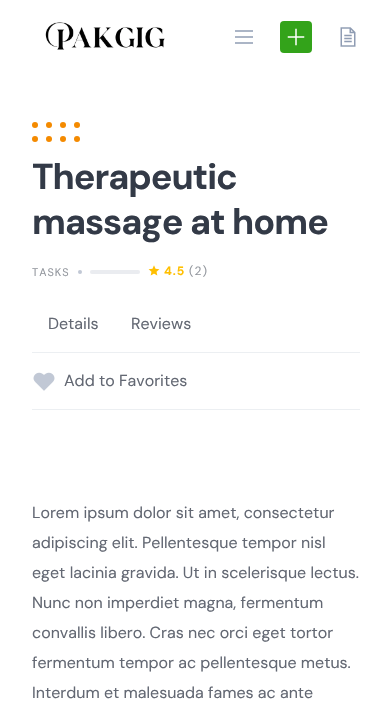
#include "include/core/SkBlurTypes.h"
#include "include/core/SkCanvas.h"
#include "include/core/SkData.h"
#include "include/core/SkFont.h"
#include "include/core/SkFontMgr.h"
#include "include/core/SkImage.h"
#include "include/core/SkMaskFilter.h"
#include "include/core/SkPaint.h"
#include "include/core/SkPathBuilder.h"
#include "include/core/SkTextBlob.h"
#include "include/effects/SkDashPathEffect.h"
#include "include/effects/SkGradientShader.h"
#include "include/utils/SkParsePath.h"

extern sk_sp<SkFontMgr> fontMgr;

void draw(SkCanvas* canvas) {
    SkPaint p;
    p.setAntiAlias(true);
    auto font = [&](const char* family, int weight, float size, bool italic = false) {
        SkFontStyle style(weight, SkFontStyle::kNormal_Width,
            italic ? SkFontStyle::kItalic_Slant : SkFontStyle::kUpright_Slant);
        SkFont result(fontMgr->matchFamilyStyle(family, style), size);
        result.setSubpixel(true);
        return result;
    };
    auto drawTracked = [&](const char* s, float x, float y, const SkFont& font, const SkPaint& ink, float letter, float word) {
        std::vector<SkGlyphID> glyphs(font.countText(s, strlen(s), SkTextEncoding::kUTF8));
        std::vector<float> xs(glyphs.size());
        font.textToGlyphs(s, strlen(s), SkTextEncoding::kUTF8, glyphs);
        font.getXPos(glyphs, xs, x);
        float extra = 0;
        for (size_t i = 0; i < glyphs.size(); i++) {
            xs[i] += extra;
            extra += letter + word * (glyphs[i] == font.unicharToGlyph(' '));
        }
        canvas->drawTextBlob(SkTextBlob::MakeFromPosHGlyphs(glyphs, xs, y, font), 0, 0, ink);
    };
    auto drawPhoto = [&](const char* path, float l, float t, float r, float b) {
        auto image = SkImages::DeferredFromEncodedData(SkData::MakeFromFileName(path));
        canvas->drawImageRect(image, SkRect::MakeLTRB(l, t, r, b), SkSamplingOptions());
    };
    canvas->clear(0xFFFFFFFF);
    drawPhoto("media/1.png", 45, 22, 165, 50);
    drawPhoto("media/2.png", 235, 30, 253, 44);
    p.setColor(0xFF33A31A);
    canvas->drawRoundRect(SkRect::MakeLTRB(280, 21, 312, 53), 4, 4, p);
    drawPhoto("media/3.png", 287, 28, 305, 46);
    drawPhoto("media/4.png", 340, 27, 356, 47);
    p.setColor(0xFFF48A00);
    canvas->drawCircle(77, 139, 3, p);
    canvas->drawCircle(63, 139, 3, p);
    canvas->drawCircle(49, 139, 3, p);
    canvas->drawCircle(35, 139, 3, p);
    canvas->drawCircle(77, 125, 3, p);
    canvas->drawCircle(63, 125, 3, p);
    canvas->drawCircle(49, 125, 3, p);
    canvas->drawCircle(35, 125, 3, p);
    auto font1 = font("DM Sans", 700, 36);
    p.setColor(0xFF333A47);
    drawTracked("Therapeutic", 32, 189, font1, p, -1, 0);
    drawTracked("massage at home", 32, 234, font1, p, -1, 0);
    auto font2 = font("DM Sans", 400, 11);
    p.setColor(0xFF93979E);
    drawTracked("TASKS", 32, 276, font2, p, 1, 0);
    p.setColor(0xFFC1C8D5);
    canvas->drawCircle(80, 272, 2, p);
    p.setColor(0xFFEAECF0);
    canvas->drawRoundRect(SkRect::MakeLTRB(90, 270, 140, 274), 2, 2, p);
    drawPhoto("media/5.png", 148, 265, 160, 276);
    auto font3 = font("DM Sans", 700, 12);
    p.setColor(0xFFFFBF00);
    drawTracked("4.5", 164, 275, font3, p, 1, 0);
    auto font4 = font("DM Sans", 400, 12);
    p.setColor(0xFF93979E);
    drawTracked("(2)", 189, 275, font4, p, 1, 0);
    p.setColor(0xFFECEFF2);
    canvas->drawRect(SkRect::MakeLTRB(32, 409, 360, 410), p);
    canvas->drawRect(SkRect::MakeLTRB(32, 352, 360, 353), p);
    auto font5 = font("DM Sans", 400, 16);
    p.setColor(0xFF636873);
    canvas->drawString("Details", 48, 329, font5, p);
    canvas->drawString("Reviews", 131, 329, font5, p);
    drawPhoto("media/6.png", 33, 372, 55, 391);
    {
        const struct { const char* s; float x, y; } items[] = {
            {"Add to Favorites", 64, 386},
            {"Lorem ipsum dolor sit amet, consectetur", 32, 518},
            {"adipiscing elit. Pellentesque tempor nisl", 32, 548},
            {"eget lacinia gravida. Ut in scelerisque lectus.", 32, 578},
            {"Nunc non imperdiet magna, fermentum", 32, 608},
            {"convallis libero. Cras nec orci eget tortor", 32, 638},
            {"fermentum tempor ac pellentesque metus.", 32, 668},
            {"Interdum et malesuada fames ac ante", 32, 698},
        };
        for (auto [s, x, y] : items) {
            canvas->drawString(s, x, y, font5, p);
        }
    }
}
